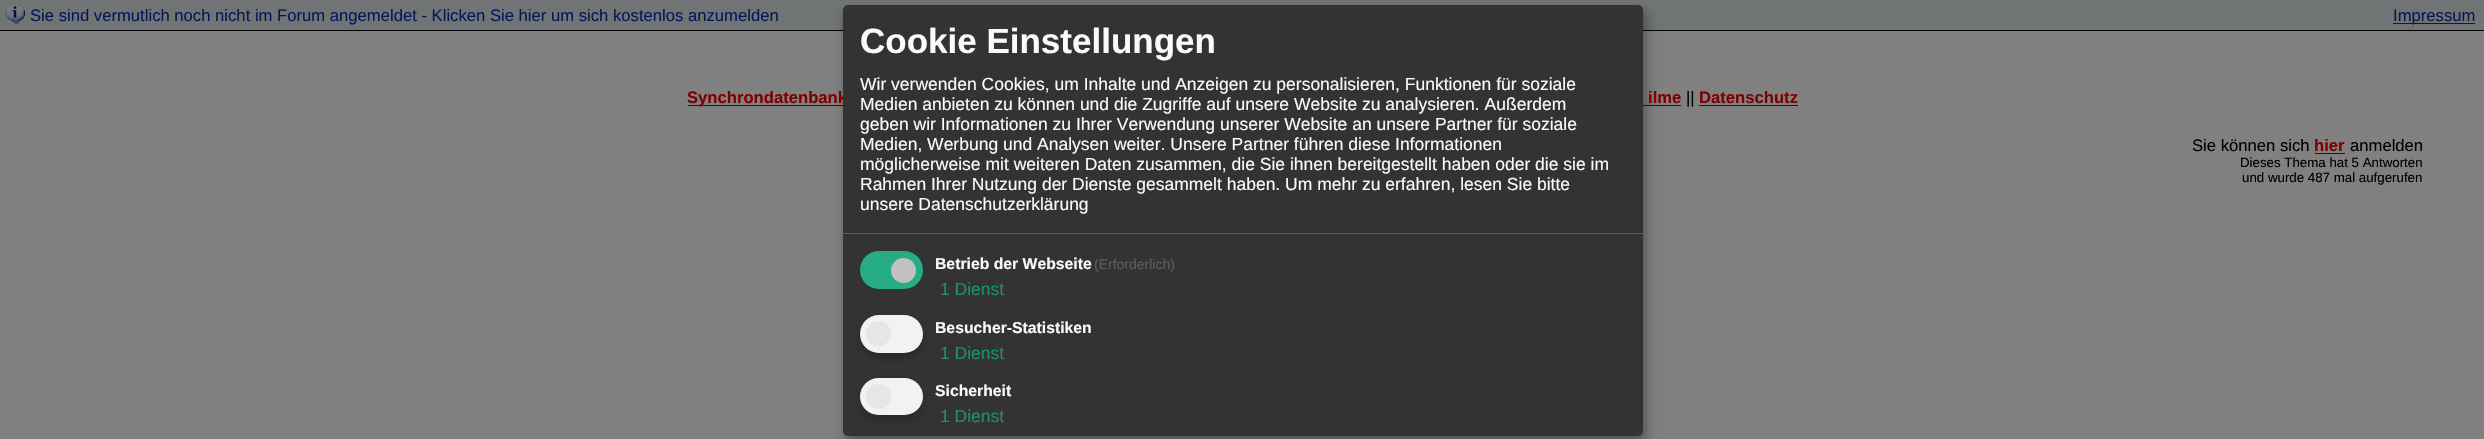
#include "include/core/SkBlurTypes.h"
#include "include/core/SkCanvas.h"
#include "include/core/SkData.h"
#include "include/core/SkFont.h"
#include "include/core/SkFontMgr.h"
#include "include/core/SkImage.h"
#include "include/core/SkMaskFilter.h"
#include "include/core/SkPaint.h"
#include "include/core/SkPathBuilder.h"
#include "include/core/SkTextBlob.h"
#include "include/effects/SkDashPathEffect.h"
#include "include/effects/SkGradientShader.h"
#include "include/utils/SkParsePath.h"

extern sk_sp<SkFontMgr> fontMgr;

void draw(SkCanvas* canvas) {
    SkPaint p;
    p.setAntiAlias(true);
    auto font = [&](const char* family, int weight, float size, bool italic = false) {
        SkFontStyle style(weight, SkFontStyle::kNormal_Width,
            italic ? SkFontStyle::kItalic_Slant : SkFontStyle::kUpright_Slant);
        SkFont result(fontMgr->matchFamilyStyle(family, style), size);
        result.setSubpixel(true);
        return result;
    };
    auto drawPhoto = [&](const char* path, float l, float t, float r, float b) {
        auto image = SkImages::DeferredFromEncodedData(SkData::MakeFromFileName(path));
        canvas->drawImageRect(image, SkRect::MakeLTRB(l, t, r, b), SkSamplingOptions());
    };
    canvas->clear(0xFF808080);
    p.setColor(0xFF717474);
    canvas->drawRect(SkRect::MakeLTRB(0, 0, 2484, 30), p);
    p.setColor(0xFF000000);
    canvas->drawRect(SkRect::MakeLTRB(0, 30, 2484, 31), p);
    drawPhoto("media/1.png", 5, 5, 25, 24);
    auto font1 = font("Liberation Sans", 400, 16.65f);
    p.setColor(0xFF041858);
    canvas->drawString("Sie sind vermutlich noch nicht im Forum angemeldet - Klicken Sie hier um sich kostenlos anzumelden", 30, 21, font1, p);
    canvas->drawRect(SkRect::MakeLTRB(2393, 23, 2475, 24), p);
    canvas->drawString("Impressum", 2393, 21, font1, p);
    canvas->drawRect(SkRect::MakeLTRB(688, 105, 843, 106), p);
    canvas->drawRect(SkRect::MakeLTRB(1643, 105, 1681, 106), p);
    p.setColor(0x30000000);
    p.setMaskFilter(SkMaskFilter::MakeBlur(kNormal_SkBlurStyle, 6));
    canvas->drawRoundRect(SkRect::MakeLTRB(849, 11, 1649, 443), 5, 5, p);
    p.setMaskFilter(nullptr);
    p.setColor(0x33000000);
    p.setMaskFilter(SkMaskFilter::MakeBlur(kNormal_SkBlurStyle, 4));
    canvas->drawRoundRect(SkRect::MakeLTRB(843, 10, 1643, 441), 5, 5, p);
    p.setMaskFilter(nullptr);
    auto font2 = font("Liberation Sans", 700, 16.65f);
    p.setColor(0xFF7F0000);
    canvas->drawString("Synchrondatenbank", 687, 103, font2, p);
    p.setColor(0xFF333333);
    canvas->drawRoundRect(SkRect::MakeLTRB(843, 5, 1643, 436), 5, 5, p);
    p.setColor(0xFF5C5C5C);
    canvas->drawRect(SkRect::MakeLTRB(843, 233, 1643, 234), p);
    auto font3 = font("Liberation Sans", 700, 35);
    p.setColor(0xFFFAFAFA);
    canvas->drawString("Cookie Einstellungen", 860, 53, font3, p);
    auto font4 = font("Liberation Sans", 400, 17.5f);
    {
        const struct { const char* s; float x, y; } items[] = {
            {"Wir verwenden Cookies, um Inhalte und Anzeigen zu personalisieren, Funktionen für soziale", 860, 90},
            {"Medien anbieten zu können und die Zugriffe auf unsere Website zu analysieren. Außerdem", 860, 110},
            {"geben wir Informationen zu Ihrer Verwendung unserer Website an unsere Partner für soziale", 860, 130},
            {"Medien, Werbung und Analysen weiter. Unsere Partner führen diese Informationen", 860, 150},
            {"möglicherweise mit weiteren Daten zusammen, die Sie ihnen bereitgestellt haben oder die sie im", 860, 170},
            {"Rahmen Ihrer Nutzung der Dienste gesammelt haben. Um mehr zu erfahren, lesen Sie bitte", 860, 190},
            {"unsere Datenschutzerklärung", 860, 210},
        };
        for (auto [s, x, y] : items) {
            canvas->drawString(s, x, y, font4, p);
        }
    }
    p.setColor(0xFF27AD85);
    canvas->drawRoundRect(SkRect::MakeLTRB(860, 251, 923, 289), 19, 19, p);
    p.setColor(0xFFC2C2C2);
    canvas->drawCircle(903.5f, 270.5f, 12.5f, p);
    auto font5 = font("Liberation Sans", 700, 15.75f);
    p.setColor(0xFFFAFAFA);
    canvas->drawString("Betrieb der Webseite", 935, 269, font5, p);
    auto font6 = font("Liberation Sans", 400, 14);
    p.setColor(0xFF5C5C5C);
    canvas->drawString("(Erforderlich)", 1094, 269, font6, p);
    p.setColor(0xFF1A936F);
    canvas->drawString("1 Dienst", 940, 295, font4, p);
    p.setColor(0x33000000);
    p.setMaskFilter(SkMaskFilter::MakeBlur(kNormal_SkBlurStyle, 4));
    canvas->drawRoundRect(SkRect::MakeLTRB(860, 320, 923, 358), 19, 19, p);
    p.setMaskFilter(nullptr);
    p.setColor(0xFFF2F2F2);
    canvas->drawRoundRect(SkRect::MakeLTRB(860, 315, 923, 353), 19, 19, p);
    p.setColor(0xFFE6E6E6);
    canvas->drawCircle(878.5f, 333.5f, 12.5f, p);
    p.setColor(0xFFFAFAFA);
    canvas->drawString("Besucher-Statistiken", 935, 333, font5, p);
    p.setColor(0xFF1A936F);
    canvas->drawString("1 Dienst", 940, 359, font4, p);
    p.setColor(0x33000000);
    p.setMaskFilter(SkMaskFilter::MakeBlur(kNormal_SkBlurStyle, 4));
    canvas->drawRoundRect(SkRect::MakeLTRB(860, 383, 923, 420), 18.5f, 18.5f, p);
    p.setMaskFilter(nullptr);
    p.setColor(0xFFF2F2F2);
    canvas->drawRoundRect(SkRect::MakeLTRB(860, 378, 923, 415), 18.5f, 18.5f, p);
    p.setColor(0xFFE6E6E6);
    canvas->drawCircle(878.5f, 396.5f, 12.5f, p);
    p.setColor(0xFFFAFAFA);
    canvas->drawString("Sicherheit", 935, 396, font5, p);
    p.setColor(0xFF1A936F);
    canvas->drawString("1 Dienst", 940, 422, font4, p);
    p.setColor(0xFF7F0000);
    canvas->drawString("ilme", 1648, 103, font2, p);
    p.setColor(0xFF000000);
    canvas->drawString("||", 1686, 103, font1, p);
    p.setColor(0xFF7F0000);
    canvas->drawString("Datenschutz", 1699, 103, font2, p);
    p.setColor(0xFF041858);
    canvas->drawRect(SkRect::MakeLTRB(1699, 105, 1798, 106), p);
    p.setColor(0xFF000000);
    canvas->drawString("Sie können sich", 2192, 151, font1, p);
    p.setColor(0xFF7F0000);
    canvas->drawString("hier", 2314, 151, font2, p);
    p.setColor(0xFF041858);
    canvas->drawRect(SkRect::MakeLTRB(2315, 153, 2345, 154), p);
    p.setColor(0xFF000000);
    canvas->drawString("anmelden", 2350, 151, font1, p);
    auto font7 = font("Liberation Sans", 400, 13.3f);
    canvas->drawString("Dieses Thema hat 5 Antworten", 2240, 167, font7, p);
    canvas->drawString("und wurde 487 mal aufgerufen", 2242, 182, font7, p);
}
